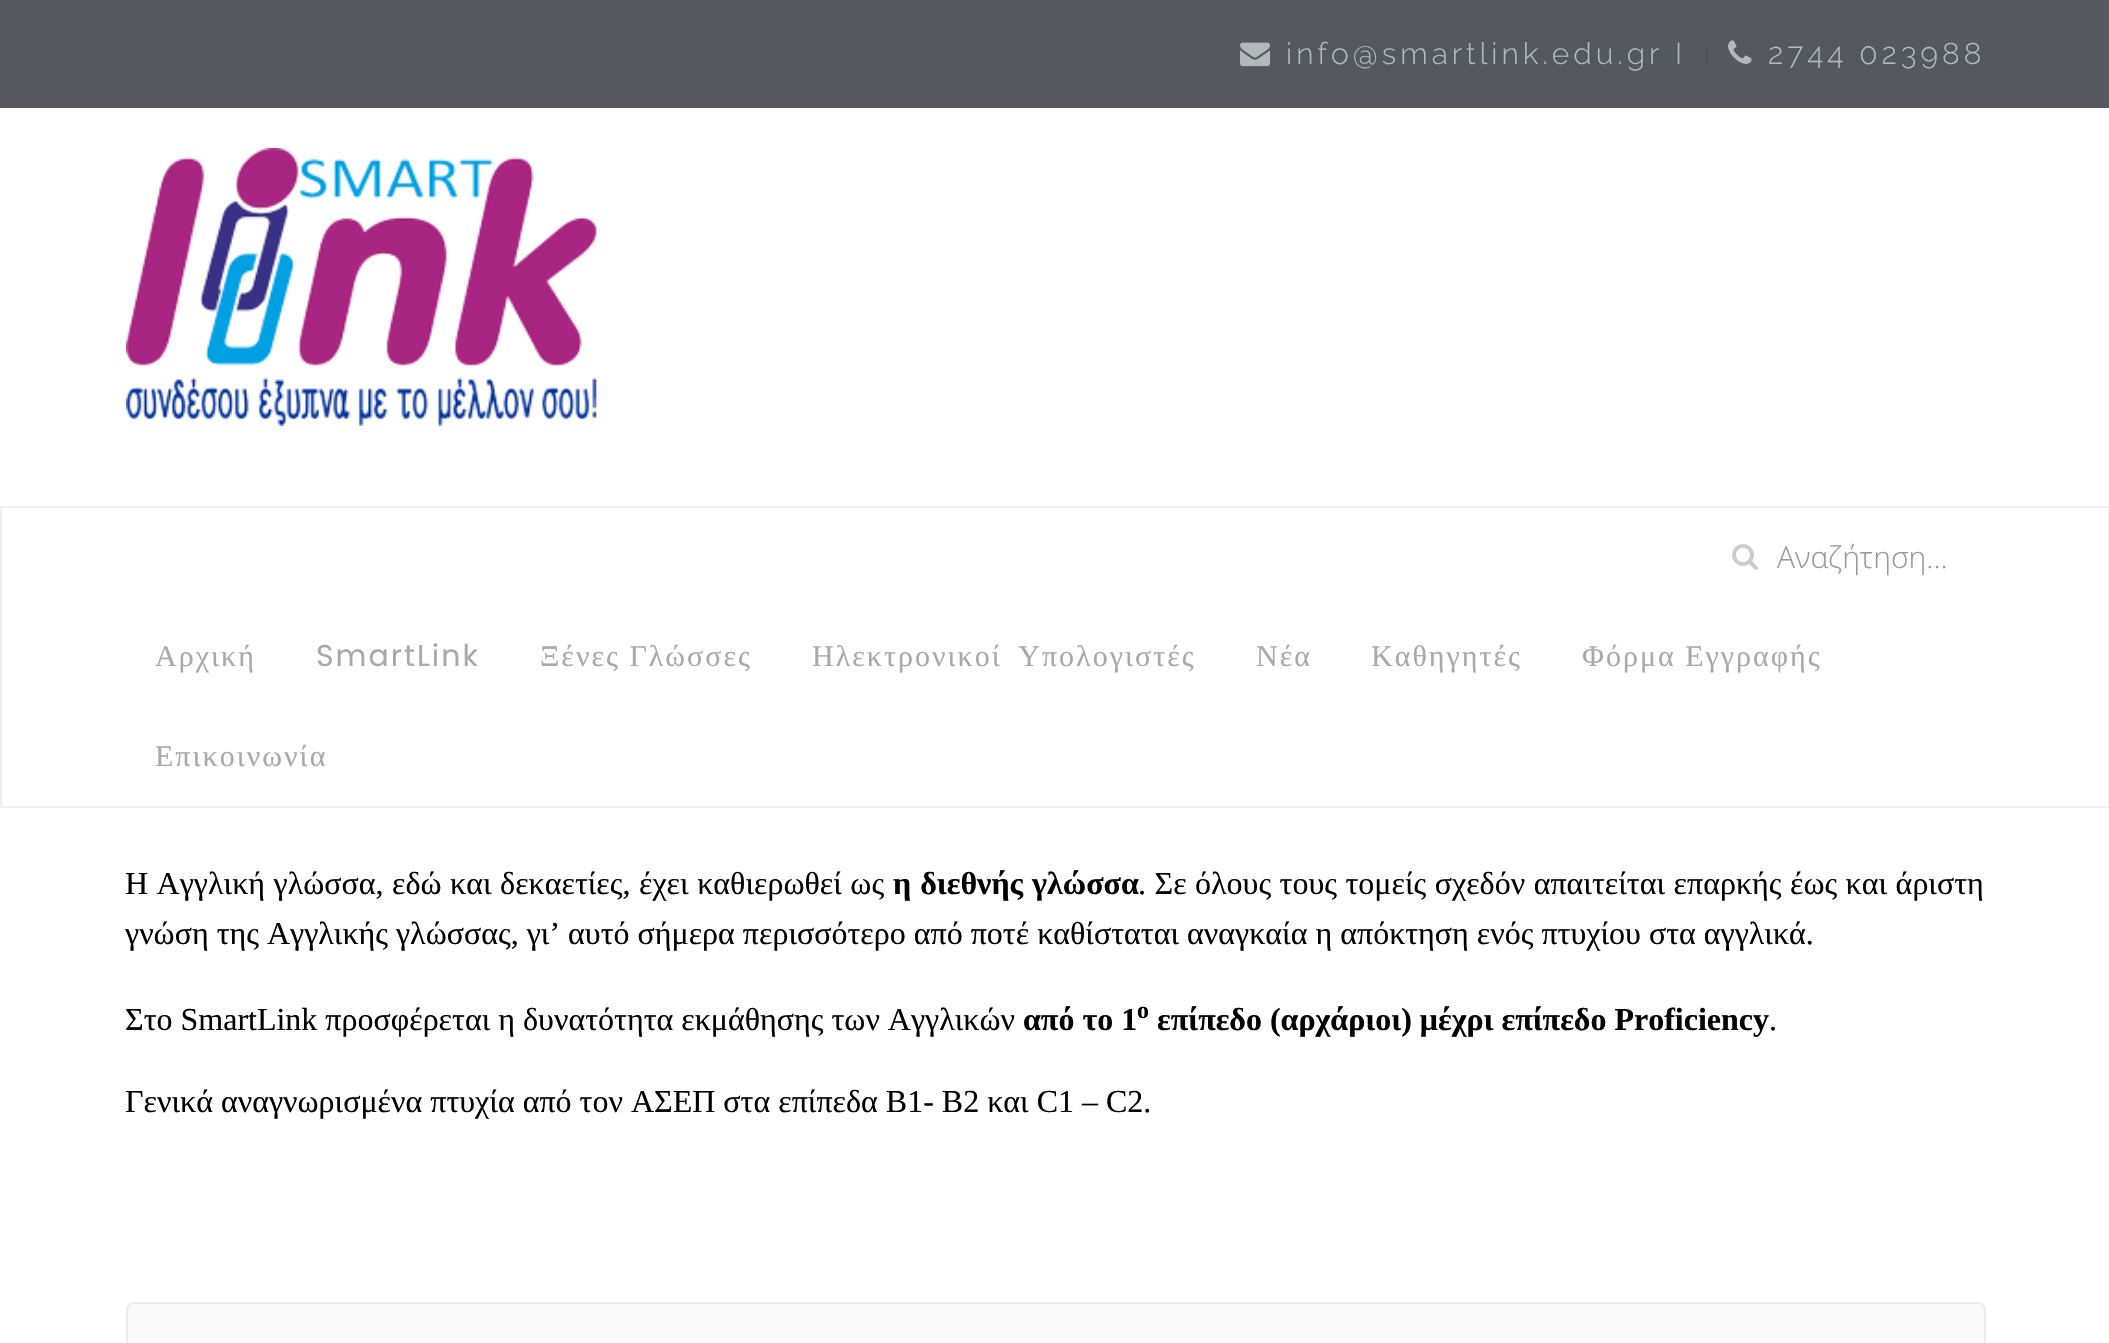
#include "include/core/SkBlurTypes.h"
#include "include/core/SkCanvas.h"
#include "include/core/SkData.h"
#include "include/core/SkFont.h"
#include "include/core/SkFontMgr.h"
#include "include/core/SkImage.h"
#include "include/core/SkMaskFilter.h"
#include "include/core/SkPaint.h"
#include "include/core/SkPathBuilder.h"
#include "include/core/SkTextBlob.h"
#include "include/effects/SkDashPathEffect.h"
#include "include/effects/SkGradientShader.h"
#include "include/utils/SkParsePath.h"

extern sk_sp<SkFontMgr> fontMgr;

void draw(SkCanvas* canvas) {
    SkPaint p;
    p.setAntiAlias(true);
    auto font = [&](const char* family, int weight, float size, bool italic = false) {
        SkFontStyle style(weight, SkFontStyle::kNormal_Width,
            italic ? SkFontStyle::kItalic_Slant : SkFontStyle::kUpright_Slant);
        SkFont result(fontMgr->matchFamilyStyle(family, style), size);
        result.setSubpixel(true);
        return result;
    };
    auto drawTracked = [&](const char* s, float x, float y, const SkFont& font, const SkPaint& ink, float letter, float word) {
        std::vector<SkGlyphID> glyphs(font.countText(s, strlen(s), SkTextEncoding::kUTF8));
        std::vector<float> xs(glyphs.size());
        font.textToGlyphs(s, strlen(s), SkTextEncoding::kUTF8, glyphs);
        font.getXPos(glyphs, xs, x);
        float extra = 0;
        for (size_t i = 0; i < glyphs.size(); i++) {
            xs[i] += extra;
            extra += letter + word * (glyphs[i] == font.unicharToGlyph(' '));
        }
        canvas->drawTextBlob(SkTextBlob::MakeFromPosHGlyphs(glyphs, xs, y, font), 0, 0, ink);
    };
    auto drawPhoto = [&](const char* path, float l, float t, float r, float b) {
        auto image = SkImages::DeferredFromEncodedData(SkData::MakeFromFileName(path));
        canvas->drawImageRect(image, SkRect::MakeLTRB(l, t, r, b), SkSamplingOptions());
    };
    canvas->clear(0xFFFFFFFF);
    p.setColor(0xFF55595D);
    canvas->drawRect(SkRect::MakeLTRB(0, 0, 2109, 108), p);
    drawPhoto("media/1.png", 1240, 42, 1270, 67);
    auto font1 = font("Raleway", 300, 30);
    p.setColor(0xFFB1B9BA);
    drawTracked("info@smartlink.edu.gr I", 1286, 64, font1, p, 4, 0);
    p.setColor(0xFF505457);
    canvas->drawRect(SkRect::MakeLTRB(1706, 46, 1708, 66), p);
    drawPhoto("media/2.png", 1728, 40, 1752, 64);
    p.setColor(0xFFB1B9BA);
    drawTracked("2744 023988", 1768, 64, font1, p, 4, 0);
    drawPhoto("media/3.png", 126, 148, 597, 426);
    p.setStyle(SkPaint::kStroke_Style);
    p.setStrokeWidth(2);
    p.setColor(0xFFF0F0F0);
    canvas->drawRect(SkRect::MakeLTRB(1, 507, 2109, 807), p);
    drawPhoto("media/4.png", 1732, 544, 1758, 570);
    auto font2 = font("Open Sans", 300, 30);
    p.setStyle(SkPaint::kFill_Style);
    p.setColor(0xFF999999);
    canvas->drawString("Αναζήτηση...", 1777, 568, font2, p);
    auto font3 = font("Liberation Serif", 400, 30);
    p.setColor(0xFFA9A9A9);
    drawTracked("Αρχική", 155, 666, font3, p, 2, 0);
    auto font4 = font("Poppins", 400, 30);
    drawTracked("SmartLink", 316, 666, font4, p, 2, 0);
    drawTracked("Ξένες Γλώσσες", 540, 666, font3, p, 2, 0);
    drawTracked("Ηλεκτρονικοί Υπολογιστές", 812, 666, font3, p, 2, 7);
    {
        const struct { const char* s; float x, y; } items[] = {
            {"Nέα", 1256, 666},
            {"Καθηγητές", 1371, 666},
            {"Φόρμα Εγγραφής", 1582, 666},
            {"Επικοινωνία", 155, 766},
        };
        for (auto [s, x, y] : items) {
            drawTracked(s, x, y, font3, p, 2, 0);
        }
    }
    auto font5 = font("Liberation Serif", 400, 32);
    p.setColor(0xFF000000);
    drawTracked("Η Αγγλική γλώσσα, εδώ και δεκαετίες, έχει καθιερωθεί ως", 125, 894, font5, p, 0, 0.5f);
    auto font6 = font("Liberation Serif", 700, 32);
    drawTracked("η διεθνής γλώσσα", 893, 894, font6, p, 0, 1);
    drawTracked(". Σε όλους τους τομείς σχεδόν απαιτείται επαρκής έως και άριστη", 1138, 894, font5, p, 0, 0.5f);
    canvas->drawString("γνώση της Αγγλικής γλώσσας, γι’ αυτό σήμερα περισσότερο από ποτέ καθίσταται αναγκαία η απόκτηση ενός πτυχίου στα αγγλικά.", 125, 944, font5, p);
    canvas->drawString("Στο SmartLink προσφέρεται η δυνατότητα εκμάθησης των Αγγλικών", 125, 1030, font5, p);
    canvas->drawString("από το 1", 1023, 1030, font6, p);
    auto font7 = font("Liberation Serif", 700, 24);
    canvas->drawString("ο", 1137, 1018, font7, p);
    canvas->drawString("επίπεδο (αρχάριοι) μέχρι επίπεδο Proficiency", 1157, 1030, font6, p);
    canvas->drawString(".", 1769, 1030, font5, p);
    canvas->drawString("Γενικά αναγνωρισμένα πτυχία από τον ΑΣΕΠ στα επίπεδα Β1- Β2 και C1 – C2.", 125, 1112, font5, p);
    p.setColor(0xFFFAFAFA);
    canvas->drawRoundRect(SkRect::MakeLTRB(127, 1303, 1985, 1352), 7, 7, p);
    p.setStyle(SkPaint::kStroke_Style);
    p.setColor(0xFFEBEBEB);
    canvas->drawRoundRect(SkRect::MakeLTRB(127, 1303, 1985, 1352), 7, 7, p);
}
